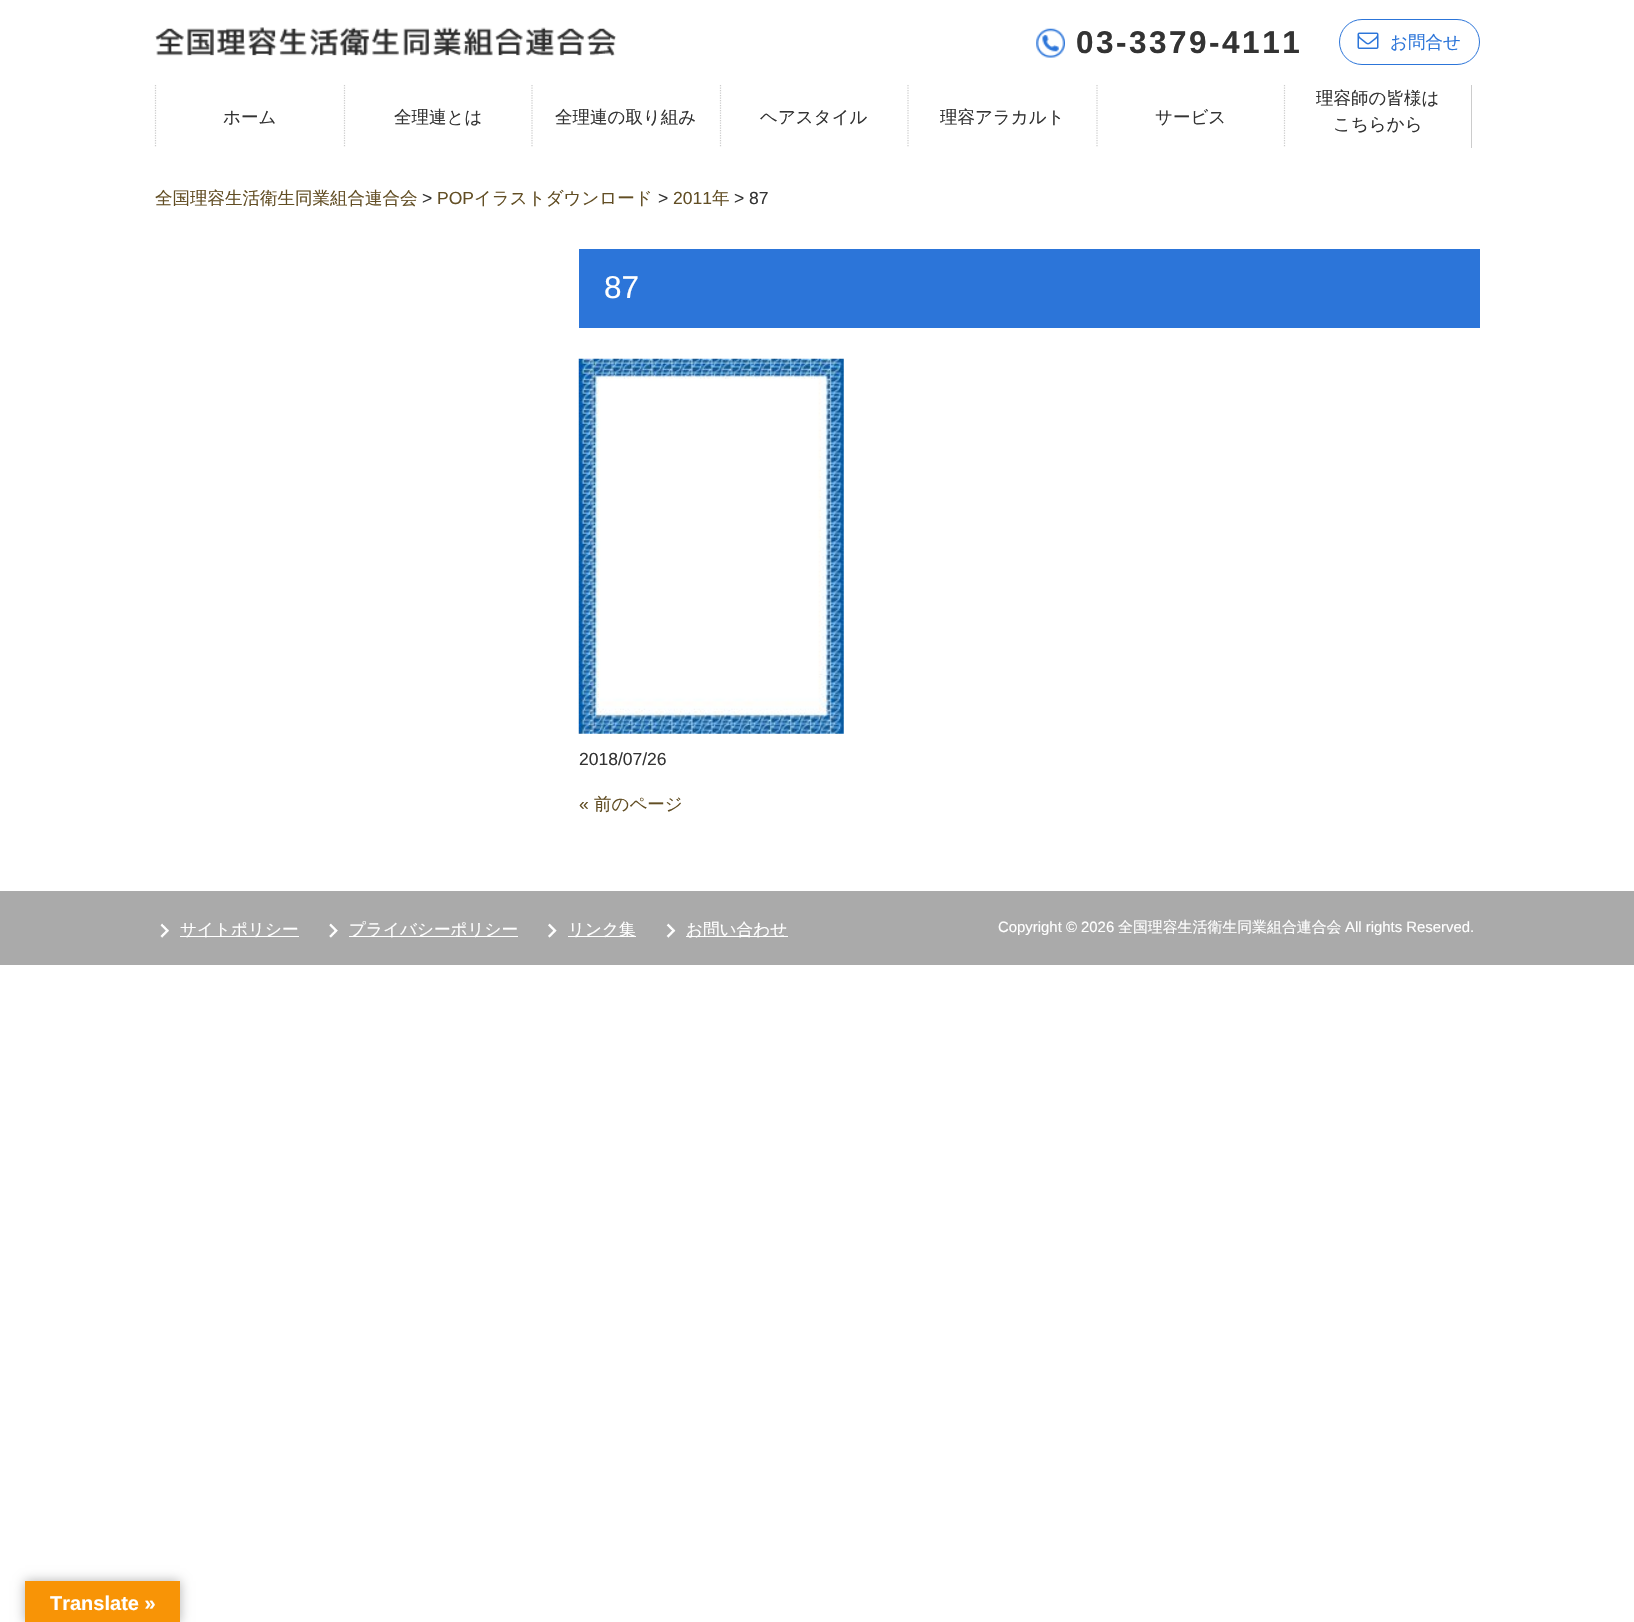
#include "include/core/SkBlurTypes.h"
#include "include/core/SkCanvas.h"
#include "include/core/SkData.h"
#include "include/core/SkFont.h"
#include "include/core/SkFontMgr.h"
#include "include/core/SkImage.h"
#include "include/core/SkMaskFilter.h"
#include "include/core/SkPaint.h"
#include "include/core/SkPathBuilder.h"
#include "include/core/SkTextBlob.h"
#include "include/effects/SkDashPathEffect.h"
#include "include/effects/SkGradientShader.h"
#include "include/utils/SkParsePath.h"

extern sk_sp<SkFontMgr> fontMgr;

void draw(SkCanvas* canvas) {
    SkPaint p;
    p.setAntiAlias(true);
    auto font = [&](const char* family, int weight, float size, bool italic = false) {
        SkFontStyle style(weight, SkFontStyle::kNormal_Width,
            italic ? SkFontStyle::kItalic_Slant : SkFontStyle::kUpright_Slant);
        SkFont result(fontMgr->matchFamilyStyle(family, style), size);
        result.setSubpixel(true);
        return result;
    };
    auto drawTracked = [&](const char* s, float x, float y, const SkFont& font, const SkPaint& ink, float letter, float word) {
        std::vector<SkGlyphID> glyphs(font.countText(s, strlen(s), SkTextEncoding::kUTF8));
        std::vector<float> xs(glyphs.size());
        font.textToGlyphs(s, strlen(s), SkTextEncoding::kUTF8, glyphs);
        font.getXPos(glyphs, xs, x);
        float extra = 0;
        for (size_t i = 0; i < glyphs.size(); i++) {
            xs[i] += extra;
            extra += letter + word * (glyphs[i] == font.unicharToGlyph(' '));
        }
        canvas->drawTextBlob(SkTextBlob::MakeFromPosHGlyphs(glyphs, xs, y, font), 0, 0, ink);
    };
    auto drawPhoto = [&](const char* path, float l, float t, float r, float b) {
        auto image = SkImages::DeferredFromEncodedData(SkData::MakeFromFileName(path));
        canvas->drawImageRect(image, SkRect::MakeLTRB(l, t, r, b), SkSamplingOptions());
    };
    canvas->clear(0xFFFFFFFF);
    drawPhoto("media/1.png", 155, 27, 616, 56);
    drawPhoto("media/2.png", 1036, 28, 1065, 58);
    auto font1 = font("Liberation Sans", 700, 31.5f);
    p.setColor(0xFF333333);
    drawTracked("03-3379-4111", 1076, 53, font1, p, 2.5f, 0);
    p.setStyle(SkPaint::kStroke_Style);
    p.setStrokeWidth(1);
    p.setColor(0xFF2C75D9);
    canvas->drawRoundRect(SkRect::MakeLTRB(1339.5f, 19.5f, 1479.5f, 64.5f), 22.5f, 22.5f, p);
    drawPhoto("media/3.png", 1357, 32, 1379, 49);
    auto font2 = font("WenQuanYi Zen Hei", 500, 17.5f);
    p.setStyle(SkPaint::kFill_Style);
    canvas->drawString("お問合せ", 1390, 48, font2, p);
    p.setStyle(SkPaint::kStroke_Style);
    p.setStrokeWidth(1.2f);
    p.setColor(0xFFCCCCCC);
    p.setPathEffect(SkDashPathEffect::Make({{1.25f, 1.25f}}, 0));
    canvas->drawPath(SkPathBuilder().moveTo(155.5f, 85).lineTo(155.5f, 147.5f).detach(), p);
    p.setPathEffect(nullptr);
    p.setStyle(SkPaint::kFill_Style);
    p.setColor(0xFF333333);
    canvas->drawString("ホーム", 223, 123, font2, p);
    p.setStyle(SkPaint::kStroke_Style);
    p.setColor(0xFFCCCCCC);
    p.setPathEffect(SkDashPathEffect::Make({{1.25f, 1.25f}}, 0));
    canvas->drawPath(SkPathBuilder().moveTo(344.5f, 85).lineTo(344.5f, 147.5f).detach(), p);
    p.setPathEffect(nullptr);
    p.setStyle(SkPaint::kFill_Style);
    p.setColor(0xFF333333);
    canvas->drawString("全理連とは", 394, 123, font2, p);
    p.setStyle(SkPaint::kStroke_Style);
    p.setColor(0xFFCCCCCC);
    p.setPathEffect(SkDashPathEffect::Make({{1.25f, 1.25f}}, 0));
    canvas->drawPath(SkPathBuilder().moveTo(532, 85).lineTo(532, 147.5f).detach(), p);
    p.setPathEffect(nullptr);
    p.setStyle(SkPaint::kFill_Style);
    p.setColor(0xFF333333);
    canvas->drawString("全理連の取り組み", 555, 123, font2, p);
    p.setStyle(SkPaint::kStroke_Style);
    p.setColor(0xFFCCCCCC);
    p.setPathEffect(SkDashPathEffect::Make({{1.25f, 1.25f}}, 0));
    canvas->drawPath(SkPathBuilder().moveTo(720.5f, 85).lineTo(720.5f, 147.5f).detach(), p);
    p.setPathEffect(nullptr);
    p.setStyle(SkPaint::kFill_Style);
    p.setColor(0xFF333333);
    canvas->drawString("ヘアスタイル", 760, 123, font2, p);
    p.setStyle(SkPaint::kStroke_Style);
    p.setColor(0xFFCCCCCC);
    p.setPathEffect(SkDashPathEffect::Make({{1.25f, 1.25f}}, 0));
    canvas->drawPath(SkPathBuilder().moveTo(908, 85).lineTo(908, 147.5f).detach(), p);
    p.setPathEffect(nullptr);
    p.setStyle(SkPaint::kFill_Style);
    p.setColor(0xFF333333);
    canvas->drawString("理容アラカルト", 940, 123, font2, p);
    p.setStyle(SkPaint::kStroke_Style);
    p.setColor(0xFFCCCCCC);
    p.setPathEffect(SkDashPathEffect::Make({{1.25f, 1.25f}}, 0));
    canvas->drawPath(SkPathBuilder().moveTo(1097, 85).lineTo(1097, 147.5f).detach(), p);
    p.setPathEffect(nullptr);
    p.setStyle(SkPaint::kFill_Style);
    p.setColor(0xFF333333);
    canvas->drawString("サービス", 1155, 123, font2, p);
    p.setColor(0xFFCCCCCC);
    canvas->drawRect(SkRect::MakeLTRB(1471, 85, 1472, 148), p);
    p.setStyle(SkPaint::kStroke_Style);
    p.setPathEffect(SkDashPathEffect::Make({{1.25f, 1.25f}}, 0));
    canvas->drawPath(SkPathBuilder().moveTo(1284.5f, 85).lineTo(1284.5f, 147.5f).detach(), p);
    p.setPathEffect(nullptr);
    p.setStyle(SkPaint::kFill_Style);
    p.setColor(0xFF333333);
    canvas->drawString("理容師の皆様は", 1316, 104, font2, p);
    canvas->drawString("こちらから", 1333, 130, font2, p);
    p.setColor(0xFF624E24);
    canvas->drawString("全国理容生活衛生同業組合連合会", 155, 204, font2, p);
    auto font3 = font("Liberation Sans", 400, 17.5f);
    p.setColor(0xFF333333);
    canvas->drawString(">", 422, 204, font3, p);
    p.setColor(0xFF624E24);
    canvas->drawString("POP", 437, 204, font3, p);
    canvas->drawString("イラストダウンロード", 474, 204, font2, p);
    p.setColor(0xFF333333);
    canvas->drawString(">", 658, 204, font3, p);
    p.setColor(0xFF624E24);
    canvas->drawString("2011", 673, 204, font3, p);
    canvas->drawString("年", 712, 204, font2, p);
    p.setColor(0xFF333333);
    canvas->drawString("> 87", 734, 204, font3, p);
    p.setColor(0xFF2C75D9);
    canvas->drawRect(SkRect::MakeLTRB(579, 249, 1480, 328), p);
    auto font4 = font("Liberation Sans", 400, 31.5f);
    p.setColor(0xFFFFFFFF);
    canvas->drawString("87", 604, 298, font4, p);
    drawPhoto("media/4.png", 578, 358, 844, 734);
    p.setColor(0xFF333333);
    canvas->drawString("2018/07/26", 579, 765, font3, p);
    p.setColor(0xFF624E24);
    canvas->drawString("«", 579, 810, font3, p);
    canvas->drawString("前のページ", 594, 810, font2, p);
    p.setColor(0xFFAAAAAA);
    canvas->drawRect(SkRect::MakeLTRB(0, 891, 1634, 965), p);
    drawPhoto("media/5.png", 160, 923, 169, 938);
    p.setColor(0xFFFFFFFF);
    canvas->drawRect(SkRect::MakeLTRB(180, 936, 299, 937), p);
    auto font5 = font("WenQuanYi Zen Hei", 500, 16.6f);
    canvas->drawString("サイトポリシー", 180, 935, font5, p);
    drawPhoto("media/6.png", 329, 923, 338, 938);
    canvas->drawRect(SkRect::MakeLTRB(349, 936, 518, 937), p);
    canvas->drawString("プライバシーポリシー", 349, 935, font5, p);
    drawPhoto("media/7.png", 548, 923, 557, 938);
    canvas->drawRect(SkRect::MakeLTRB(568, 936, 636, 937), p);
    canvas->drawString("リンク集", 568, 935, font5, p);
    drawPhoto("media/8.png", 666, 923, 676, 938);
    canvas->drawRect(SkRect::MakeLTRB(686, 936, 788, 937), p);
    canvas->drawString("お問い合わせ", 686, 935, font5, p);
    auto font6 = font("Liberation Sans", 400, 14.9f);
    canvas->drawString("Copyright © 2026", 998, 932, font6, p);
    auto font7 = font("WenQuanYi Zen Hei", 500, 14.9f);
    canvas->drawString("全国理容生活衛生同業組合連合会", 1118, 932, font7, p);
    canvas->drawString("All rights Reserved.", 1345, 932, font6, p);
    p.setColor(0x4D000000);
    p.setMaskFilter(SkMaskFilter::MakeBlur(kNormal_SkBlurStyle, 5.5f));
    canvas->drawRect(SkRect::MakeLTRB(25, 1581, 180, 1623), p);
    p.setMaskFilter(nullptr);
    p.setColor(0xFFF89406);
    canvas->drawRect(SkRect::MakeLTRB(25, 1581, 180, 1622), p);
    auto font8 = font("Liberation Sans", 700, 20);
    p.setColor(0xFFFFFFFF);
    canvas->drawString("Translate »", 50, 1610, font8, p);
}
